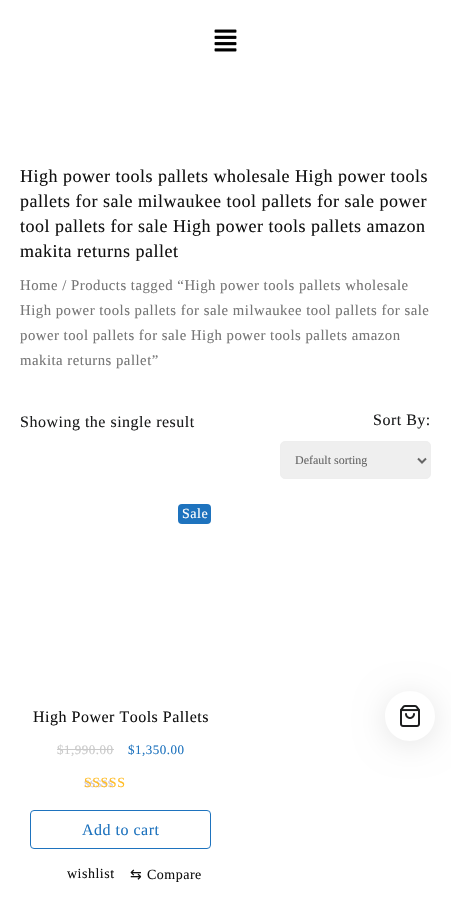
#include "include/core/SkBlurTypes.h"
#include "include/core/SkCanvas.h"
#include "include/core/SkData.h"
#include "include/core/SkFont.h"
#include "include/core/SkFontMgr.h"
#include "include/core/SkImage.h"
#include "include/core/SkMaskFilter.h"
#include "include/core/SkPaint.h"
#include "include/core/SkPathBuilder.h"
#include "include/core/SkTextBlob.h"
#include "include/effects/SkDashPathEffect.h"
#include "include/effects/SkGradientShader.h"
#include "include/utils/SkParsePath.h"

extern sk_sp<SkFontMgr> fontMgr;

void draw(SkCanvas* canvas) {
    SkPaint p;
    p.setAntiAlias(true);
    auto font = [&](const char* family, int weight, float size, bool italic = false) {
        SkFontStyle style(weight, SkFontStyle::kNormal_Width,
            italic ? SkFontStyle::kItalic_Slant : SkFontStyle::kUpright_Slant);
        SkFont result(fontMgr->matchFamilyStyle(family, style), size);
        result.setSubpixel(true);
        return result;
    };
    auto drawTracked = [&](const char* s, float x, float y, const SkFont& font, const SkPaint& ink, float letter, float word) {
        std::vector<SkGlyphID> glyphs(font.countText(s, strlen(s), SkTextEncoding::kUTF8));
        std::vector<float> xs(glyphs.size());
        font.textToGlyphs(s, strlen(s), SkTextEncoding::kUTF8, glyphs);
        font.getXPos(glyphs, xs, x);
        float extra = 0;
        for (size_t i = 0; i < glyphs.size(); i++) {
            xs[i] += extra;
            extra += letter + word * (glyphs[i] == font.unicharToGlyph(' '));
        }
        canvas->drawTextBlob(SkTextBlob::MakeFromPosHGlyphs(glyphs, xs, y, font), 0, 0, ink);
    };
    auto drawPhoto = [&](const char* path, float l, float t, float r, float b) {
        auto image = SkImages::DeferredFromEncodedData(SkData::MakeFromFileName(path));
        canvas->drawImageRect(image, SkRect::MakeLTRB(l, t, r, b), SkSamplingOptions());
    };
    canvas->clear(0xFFFFFFFF);
    drawPhoto("media/1.png", 214, 29, 237, 52);
    auto font1 = font("Liberation Serif", 400, 18);
    p.setColor(0xFF111111);
    {
        const struct { const char* s; float x, y; } items[] = {
            {"High power tools pallets wholesale High power tools", 20, 182},
            {"pallets for sale milwaukee tool pallets for sale power", 20, 207},
            {"tool pallets for sale High power tools pallets amazon", 20, 232},
            {"makita returns pallet", 20, 257},
        };
        for (auto [s, x, y] : items) {
            drawTracked(s, x, y, font1, p, 0.5f, 0);
        }
    }
    auto font2 = font("Liberation Serif", 400, 14.75f);
    p.setColor(0xFF767676);
    {
        const struct { const char* s; float x, y; } items[] = {
            {"Home / Products tagged “High power tools pallets wholesale", 20, 290},
            {"High power tools pallets for sale milwaukee tool pallets for sale", 20, 315},
            {"power tool pallets for sale High power tools pallets amazon", 20, 340},
            {"makita returns pallet”", 20, 365},
        };
        for (auto [s, x, y] : items) {
            drawTracked(s, x, y, font2, p, 0.5f, 0);
        }
    }
    auto font3 = font("Liberation Serif", 400, 16);
    p.setColor(0xFF1C1D1E);
    drawTracked("Showing the single result", 20, 427, font3, p, 0.5f, 0);
    drawTracked("Sort By:", 373, 425, font3, p, 0.5f, 0);
    p.setColor(0xFFEFEFEF);
    canvas->drawRoundRect(SkRect::MakeLTRB(280.5f, 441.5f, 430.5f, 478.5f), 4.5f, 4.5f, p);
    p.setStyle(SkPaint::kStroke_Style);
    p.setStrokeWidth(1);
    p.setColor(0xFFEEEEEE);
    canvas->drawRoundRect(SkRect::MakeLTRB(280.5f, 441.5f, 430.5f, 478.5f), 4.5f, 4.5f, p);
    p.setStrokeWidth(2);
    p.setColor(0xFF666666);
    canvas->drawPath(SkPathBuilder().moveTo(418, 458.5f).lineTo(422, 462.5f).lineTo(426, 458.5f).detach(), p);
    auto font4 = font("Liberation Serif", 400, 12);
    p.setStyle(SkPaint::kFill_Style);
    canvas->drawString("Default sorting", 295, 464, font4, p);
    p.setColor(0xFF1E73BE);
    canvas->drawRoundRect(SkRect::MakeLTRB(178, 504, 211, 524), 4, 4, p);
    auto font5 = font("Liberation Serif", 400, 14);
    p.setColor(0xFFFFFFFF);
    drawTracked("Sale", 182, 518, font5, p, 0.5f, 0);
    p.setColor(0xFF111111);
    drawTracked("High Power Tools Pallets", 33, 722, font3, p, 0.5f, 0);
    auto font6 = font("Liberation Serif", 400, 13);
    p.setColor(0xFFCACACA);
    drawTracked("$1,990.00", 57, 754, font6, p, 0.5f, 0);
    canvas->drawRect(SkRect::MakeLTRB(57, 749, 114, 750), p);
    p.setColor(0xFF1E73BE);
    drawTracked("$1,350.00", 128, 754, font6, p, 0.5f, 0);
    p.setColor(0xFFCFC8D8);
    drawTracked("sssss", 84, 787, font5, p, 0.5f, 0);
    p.setColor(0xFFFFBD27);
    drawTracked("SSSSS", 84, 787, font5, p, 0.5f, 0);
    p.setStyle(SkPaint::kStroke_Style);
    p.setStrokeWidth(1);
    p.setColor(0xFF1E73BE);
    canvas->drawRoundRect(SkRect::MakeLTRB(30.5f, 810.5f, 210.5f, 848.5f), 3.5f, 3.5f, p);
    p.setStyle(SkPaint::kFill_Style);
    drawTracked("Add to cart", 82, 835, font3, p, 0.5f, 0);
    p.setColor(0xFF111111);
    drawTracked("wishlist", 67, 878, font5, p, 0.5f, 0);
    auto font7 = font("DejaVu Sans", 400, 14);
    drawTracked("⇆", 130, 879, font7, p, 0.5f, 0);
    drawTracked("Compare", 147, 879, font5, p, 0.5f, 0);
    canvas->save();
    canvas->clipPath(SkPathBuilder(SkPathFillType::kEvenOdd).moveTo(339, 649).lineTo(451, 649).lineTo(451, 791).lineTo(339, 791).close().moveTo(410, 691).cubicTo(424, 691, 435, 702, 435, 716).cubicTo(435, 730, 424, 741, 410, 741).cubicTo(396, 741, 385, 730, 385, 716).cubicTo(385, 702, 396, 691, 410, 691).close().detach(), true);
    p.setColor(0x1A000000);
    p.setMaskFilter(SkMaskFilter::MakeBlur(kNormal_SkBlurStyle, 15));
    canvas->drawRoundRect(SkRect::MakeLTRB(385, 695, 435, 745), 25, 25, p);
    p.setMaskFilter(nullptr);
    canvas->restore();
    drawPhoto("media/2.png", 400, 705, 420, 727);
}
